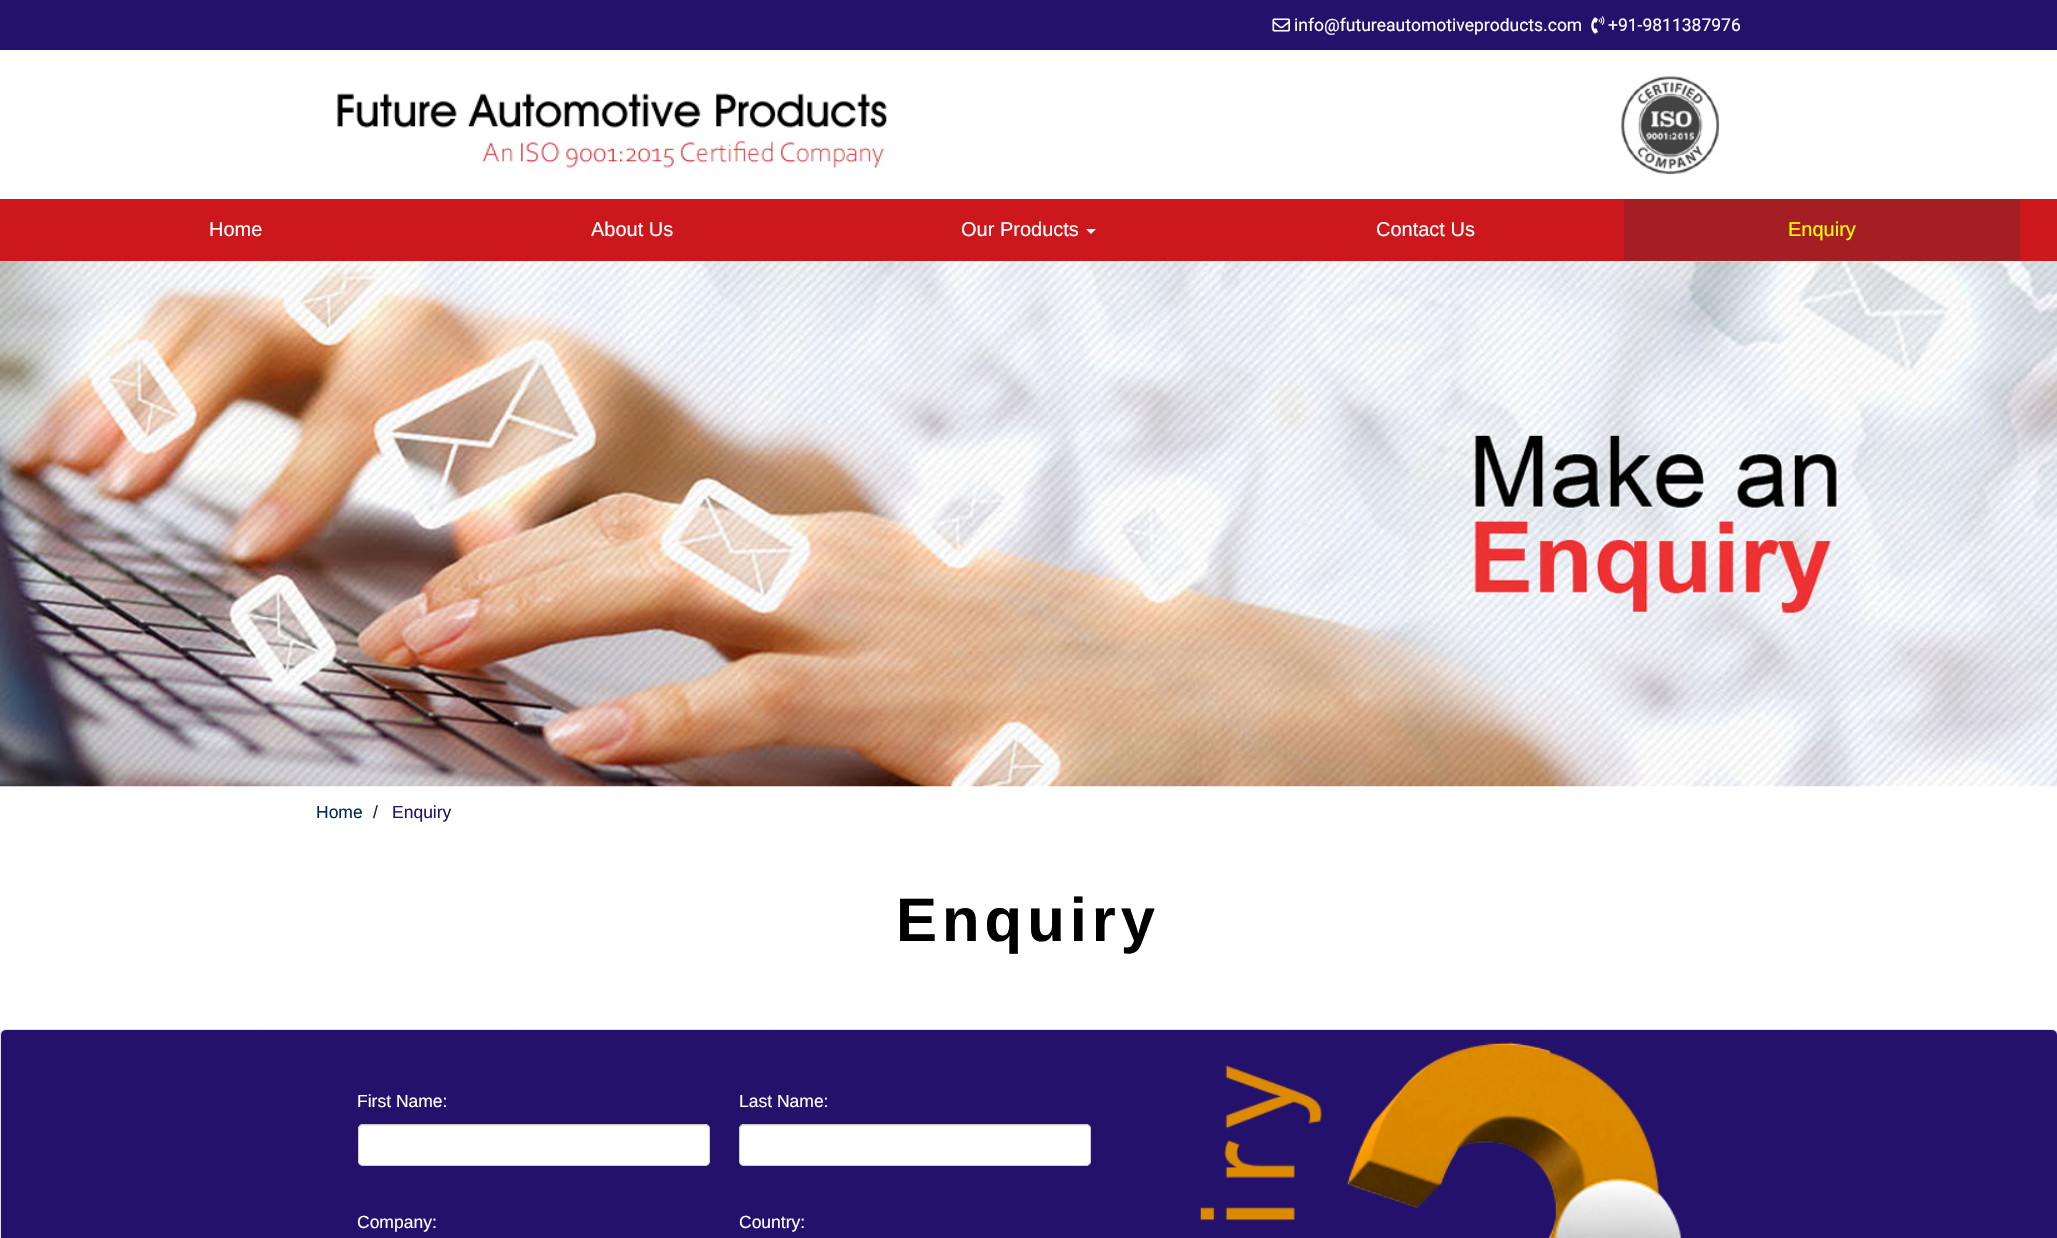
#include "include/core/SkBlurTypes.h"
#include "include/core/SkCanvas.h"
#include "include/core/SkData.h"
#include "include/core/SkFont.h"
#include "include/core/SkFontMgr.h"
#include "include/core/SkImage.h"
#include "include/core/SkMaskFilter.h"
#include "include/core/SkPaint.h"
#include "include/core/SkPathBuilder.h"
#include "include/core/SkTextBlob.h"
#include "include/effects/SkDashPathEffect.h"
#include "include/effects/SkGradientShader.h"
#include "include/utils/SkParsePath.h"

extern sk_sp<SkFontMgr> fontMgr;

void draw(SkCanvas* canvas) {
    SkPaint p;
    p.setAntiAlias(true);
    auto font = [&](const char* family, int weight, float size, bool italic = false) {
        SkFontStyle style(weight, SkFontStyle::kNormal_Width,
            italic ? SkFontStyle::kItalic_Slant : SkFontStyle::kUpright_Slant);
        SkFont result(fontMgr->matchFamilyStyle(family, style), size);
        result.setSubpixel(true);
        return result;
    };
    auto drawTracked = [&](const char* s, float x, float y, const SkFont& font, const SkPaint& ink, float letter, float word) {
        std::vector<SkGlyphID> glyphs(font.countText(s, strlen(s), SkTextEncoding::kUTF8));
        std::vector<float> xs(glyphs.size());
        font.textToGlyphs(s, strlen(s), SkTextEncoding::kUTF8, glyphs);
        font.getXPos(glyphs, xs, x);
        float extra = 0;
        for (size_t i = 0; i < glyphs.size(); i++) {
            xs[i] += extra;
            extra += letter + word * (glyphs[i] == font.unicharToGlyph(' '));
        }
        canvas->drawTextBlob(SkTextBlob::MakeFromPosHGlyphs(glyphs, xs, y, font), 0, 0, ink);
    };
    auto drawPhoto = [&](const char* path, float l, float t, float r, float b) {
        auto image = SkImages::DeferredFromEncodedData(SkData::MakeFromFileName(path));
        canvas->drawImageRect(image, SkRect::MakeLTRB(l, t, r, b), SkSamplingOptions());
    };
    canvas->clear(0xFFFFFFFF);
    p.setColor(0xFF24116C);
    canvas->drawRect(SkRect::MakeLTRB(0, 0, 2057, 50), p);
    drawPhoto("media/1.png", 1272, 18, 1290, 32);
    auto font1 = font("Roboto", 400, 17.5f);
    p.setColor(0xFFFFFFFF);
    canvas->drawString("info@futureautomotiveproducts.com", 1294, 31, font1, p);
    drawPhoto("media/2.png", 1591, 16, 1605, 34);
    canvas->drawString("+91-9811387976", 1608, 31, font1, p);
    drawPhoto("media/3.png", 337, 93, 887, 168);
    drawPhoto("media/4.png", 1621, 76, 1720, 175);
    p.setColor(0xFFCC171C);
    canvas->drawRect(SkRect::MakeLTRB(0, 199, 2057, 261), p);
    auto font2 = font("Liberation Sans", 400, 20);
    p.setColor(0xFFFFFFFF);
    {
        const struct { const char* s; float x, y; } items[] = {
            {"Home", 209, 236},
            {"About Us", 591, 236},
            {"Our Products", 961, 236},
        };
        for (auto [s, x, y] : items) {
            canvas->drawString(s, x, y, font2, p);
        }
    }
    canvas->drawPath(SkPathBuilder().moveTo(1086, 229).lineTo(1096, 229).lineTo(1091, 234).close().detach(), p);
    canvas->drawString("Contact Us", 1376, 236, font2, p);
    p.setColor(0xFFA41E24);
    canvas->drawRect(SkRect::MakeLTRB(1624, 199, 2020, 261), p);
    p.setColor(0xFFFFFF00);
    canvas->drawString("Enquiry", 1788, 236, font2, p);
    drawPhoto("media/5.png", 0, 261, 2057, 787);
    auto font3 = font("Liberation Sans", 400, 17.5f);
    p.setColor(0xFF022B56);
    canvas->drawString("Home", 316, 818, font3, p);
    p.setColor(0xFF24116C);
    canvas->drawString("/", 373, 818, font3, p);
    canvas->drawString("Enquiry", 392, 818, font3, p);
    auto font4 = font("Liberation Sans", 700, 61.5f);
    p.setColor(0xFF000000);
    drawTracked("Enquiry", 896, 941, font4, p, 5, 0);
    p.setColor(0xFF24116C);
    canvas->drawRoundRect(SkRect::MakeLTRB(0.5f, 1029.5f, 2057.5f, 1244.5f), 5.5f, 5.5f, p);
    p.setStyle(SkPaint::kStroke_Style);
    p.setStrokeWidth(1);
    p.setColor(0xFFE6E0E0);
    canvas->drawRoundRect(SkRect::MakeLTRB(0.5f, 1029.5f, 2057.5f, 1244.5f), 5.5f, 5.5f, p);
    p.setStyle(SkPaint::kFill_Style);
    p.setColor(0xFFFFFFFF);
    canvas->drawString("First Name:", 357, 1107, font3, p);
    canvas->drawRoundRect(SkRect::MakeLTRB(358, 1124, 710, 1166), 5, 5, p);
    p.setColor(0xFFECECEC);
    canvas->drawPath(SkPathBuilder().moveTo(362, 1126).lineTo(705, 1126).cubicTo(707, 1126, 709, 1128, 709, 1130).lineTo(708, 1127).lineTo(706, 1125).lineTo(363, 1125).cubicTo(360, 1125, 359, 1127, 359, 1130).cubicTo(359, 1128, 360, 1126, 362, 1126).close().detach(), p);
    p.setStyle(SkPaint::kStroke_Style);
    p.setColor(0xFFCCCCCC);
    canvas->drawRoundRect(SkRect::MakeLTRB(358.5f, 1124.5f, 709.5f, 1165.5f), 4.5f, 4.5f, p);
    p.setStyle(SkPaint::kFill_Style);
    p.setColor(0xFFFFFFFF);
    canvas->drawString("Last Name:", 739, 1107, font3, p);
    canvas->drawRoundRect(SkRect::MakeLTRB(739, 1124, 1091, 1166), 5, 5, p);
    p.setColor(0xFFECECEC);
    canvas->drawPath(SkPathBuilder().moveTo(744, 1126).lineTo(1086, 1126).cubicTo(1088, 1126, 1090, 1128, 1090, 1130).cubicTo(1090, 1127, 1089, 1125, 1086, 1125).lineTo(743, 1125).lineTo(741, 1127).lineTo(740, 1130).cubicTo(740, 1128, 742, 1126, 744, 1126).close().detach(), p);
    p.setStyle(SkPaint::kStroke_Style);
    p.setColor(0xFFCCCCCC);
    canvas->drawRoundRect(SkRect::MakeLTRB(739.5f, 1124.5f, 1090.5f, 1165.5f), 4.5f, 4.5f, p);
    p.setStyle(SkPaint::kFill_Style);
    p.setColor(0xFFFFFFFF);
    canvas->drawString("Company:", 357, 1228, font3, p);
    canvas->drawString("Country:", 739, 1228, font3, p);
    drawPhoto("media/6.png", 1200, 1042, 1682, 1238);
}
